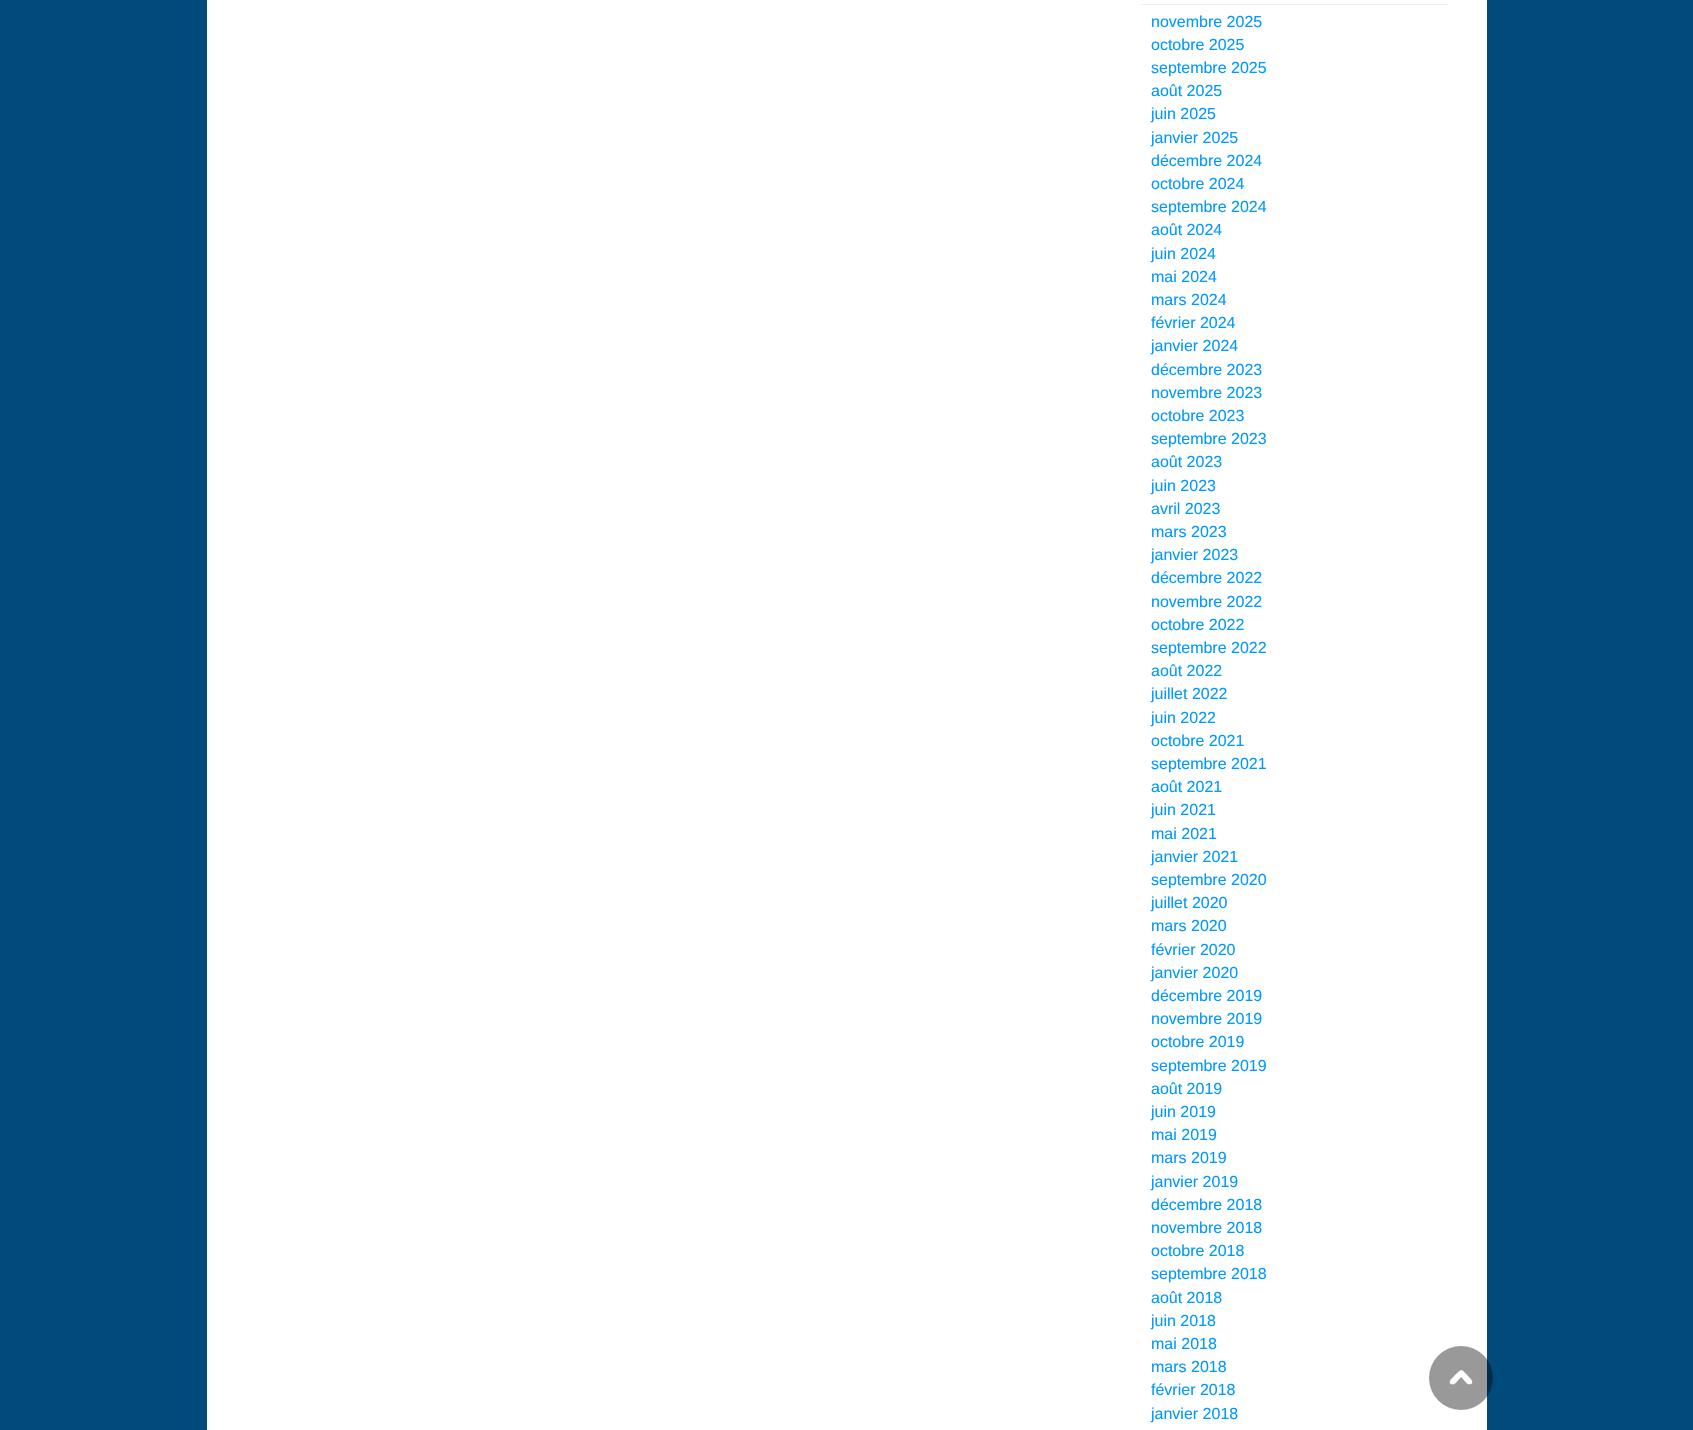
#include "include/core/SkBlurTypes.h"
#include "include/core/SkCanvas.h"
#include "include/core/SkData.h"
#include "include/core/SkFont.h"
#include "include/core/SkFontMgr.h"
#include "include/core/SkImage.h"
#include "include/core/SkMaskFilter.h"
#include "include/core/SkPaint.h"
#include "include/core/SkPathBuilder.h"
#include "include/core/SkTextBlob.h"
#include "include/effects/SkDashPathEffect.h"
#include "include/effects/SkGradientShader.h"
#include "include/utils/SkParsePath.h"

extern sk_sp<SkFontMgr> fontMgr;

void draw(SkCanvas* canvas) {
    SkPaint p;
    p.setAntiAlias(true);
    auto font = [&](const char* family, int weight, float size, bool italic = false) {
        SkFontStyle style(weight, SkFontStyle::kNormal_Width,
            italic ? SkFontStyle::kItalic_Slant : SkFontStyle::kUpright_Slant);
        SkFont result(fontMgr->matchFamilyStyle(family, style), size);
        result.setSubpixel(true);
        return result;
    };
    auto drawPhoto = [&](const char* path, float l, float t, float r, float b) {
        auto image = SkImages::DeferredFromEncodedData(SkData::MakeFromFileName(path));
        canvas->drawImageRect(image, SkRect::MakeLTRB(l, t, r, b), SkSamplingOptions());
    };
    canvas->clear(0xFF014B7C);
    p.setColor(0xFFFFFFFF);
    canvas->drawRect(SkRect::MakeLTRB(207, 0, 1487, 1430), p);
    p.setColor(0xFFEEEEEE);
    canvas->drawRect(SkRect::MakeLTRB(1141, 4, 1448, 5), p);
    auto font1 = font("Liberation Sans", 400, 16);
    p.setColor(0xFF0099FF);
    {
        const struct { const char* s; float x, y; } items[] = {
            {"novembre 2025", 1151, 27},
            {"octobre 2025", 1151, 50},
            {"septembre 2025", 1151, 73},
            {"août 2025", 1151, 96},
            {"juin 2025", 1151, 119},
            {"janvier 2025", 1151, 143},
            {"décembre 2024", 1151, 166},
            {"octobre 2024", 1151, 189},
            {"septembre 2024", 1151, 212},
            {"août 2024", 1151, 235},
            {"juin 2024", 1151, 259},
            {"mai 2024", 1151, 282},
            {"mars 2024", 1151, 305},
            {"février 2024", 1151, 328},
            {"janvier 2024", 1151, 351},
            {"décembre 2023", 1151, 375},
            {"novembre 2023", 1151, 398},
            {"octobre 2023", 1151, 421},
            {"septembre 2023", 1151, 444},
            {"août 2023", 1151, 467},
            {"juin 2023", 1151, 491},
            {"avril 2023", 1151, 514},
            {"mars 2023", 1151, 537},
            {"janvier 2023", 1151, 560},
            {"décembre 2022", 1151, 583},
            {"novembre 2022", 1151, 607},
            {"octobre 2022", 1151, 630},
            {"septembre 2022", 1151, 653},
            {"août 2022", 1151, 676},
            {"juillet 2022", 1151, 699},
            {"juin 2022", 1151, 723},
            {"octobre 2021", 1151, 746},
            {"septembre 2021", 1151, 769},
            {"août 2021", 1151, 792},
            {"juin 2021", 1151, 815},
            {"mai 2021", 1151, 839},
            {"janvier 2021", 1151, 862},
            {"septembre 2020", 1151, 885},
            {"juillet 2020", 1151, 908},
            {"mars 2020", 1151, 931},
            {"février 2020", 1151, 955},
            {"janvier 2020", 1151, 978},
            {"décembre 2019", 1151, 1001},
            {"novembre 2019", 1151, 1024},
            {"octobre 2019", 1151, 1047},
            {"septembre 2019", 1151, 1071},
            {"août 2019", 1151, 1094},
            {"juin 2019", 1151, 1117},
            {"mai 2019", 1151, 1140},
            {"mars 2019", 1151, 1163},
            {"janvier 2019", 1151, 1187},
            {"décembre 2018", 1151, 1210},
            {"novembre 2018", 1151, 1233},
            {"octobre 2018", 1151, 1256},
            {"septembre 2018", 1151, 1279},
            {"août 2018", 1151, 1303},
            {"juin 2018", 1151, 1326},
            {"mai 2018", 1151, 1349},
            {"mars 2018", 1151, 1372},
            {"février 2018", 1151, 1395},
            {"janvier 2018", 1151, 1419},
        };
        for (auto [s, x, y] : items) {
            canvas->drawString(s, x, y, font1, p);
        }
    }
    drawPhoto("media/1.png", 1429, 1346, 1493, 1410);
}
